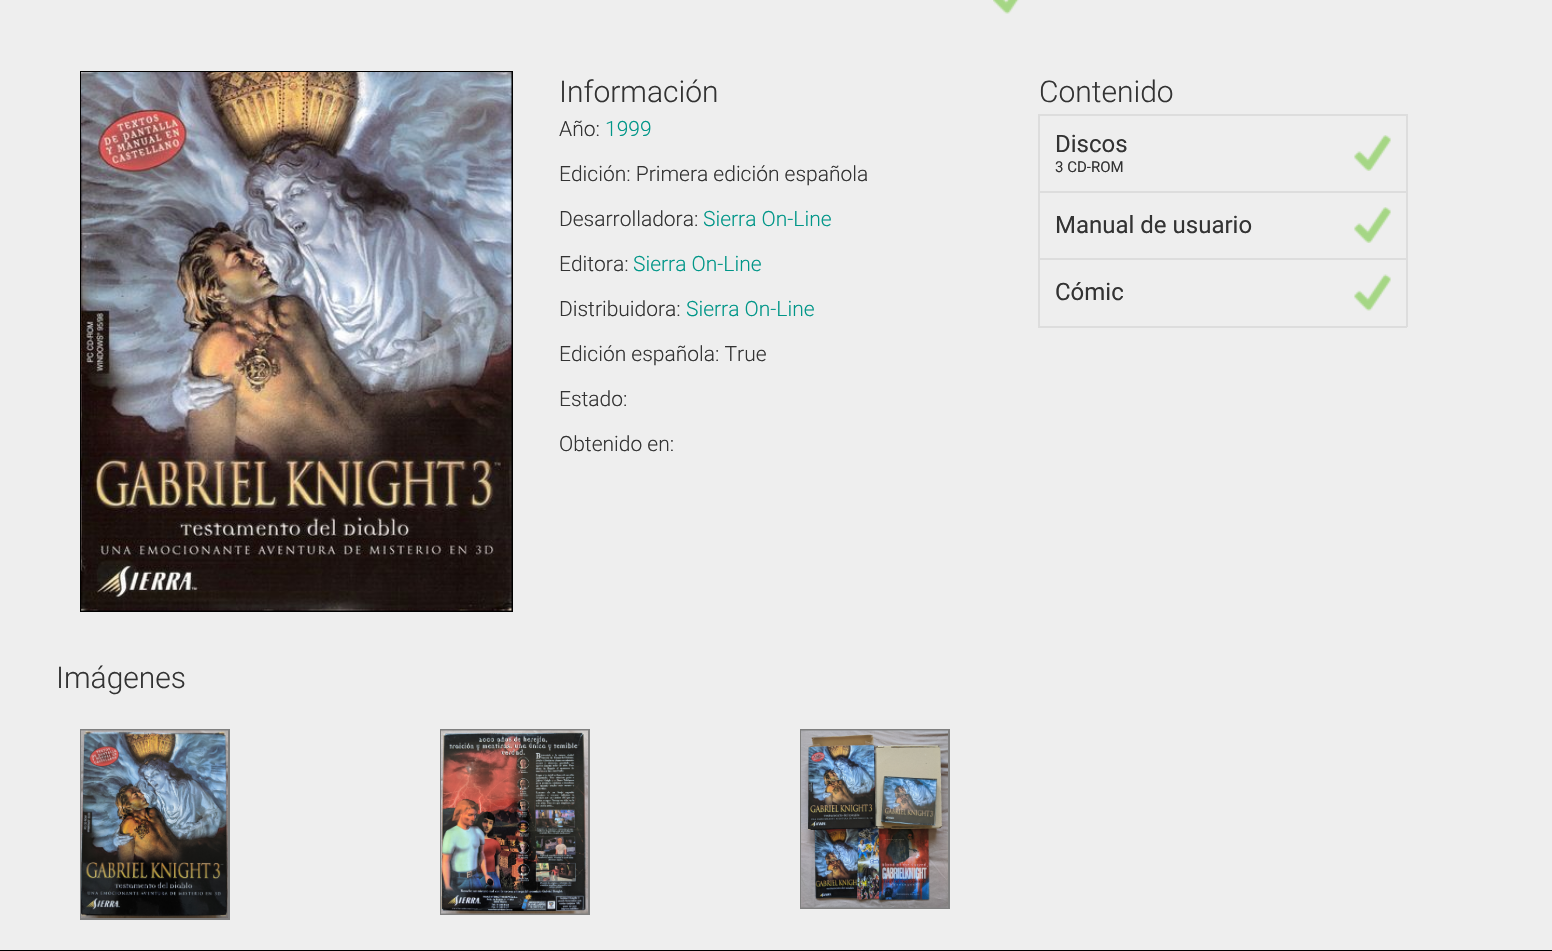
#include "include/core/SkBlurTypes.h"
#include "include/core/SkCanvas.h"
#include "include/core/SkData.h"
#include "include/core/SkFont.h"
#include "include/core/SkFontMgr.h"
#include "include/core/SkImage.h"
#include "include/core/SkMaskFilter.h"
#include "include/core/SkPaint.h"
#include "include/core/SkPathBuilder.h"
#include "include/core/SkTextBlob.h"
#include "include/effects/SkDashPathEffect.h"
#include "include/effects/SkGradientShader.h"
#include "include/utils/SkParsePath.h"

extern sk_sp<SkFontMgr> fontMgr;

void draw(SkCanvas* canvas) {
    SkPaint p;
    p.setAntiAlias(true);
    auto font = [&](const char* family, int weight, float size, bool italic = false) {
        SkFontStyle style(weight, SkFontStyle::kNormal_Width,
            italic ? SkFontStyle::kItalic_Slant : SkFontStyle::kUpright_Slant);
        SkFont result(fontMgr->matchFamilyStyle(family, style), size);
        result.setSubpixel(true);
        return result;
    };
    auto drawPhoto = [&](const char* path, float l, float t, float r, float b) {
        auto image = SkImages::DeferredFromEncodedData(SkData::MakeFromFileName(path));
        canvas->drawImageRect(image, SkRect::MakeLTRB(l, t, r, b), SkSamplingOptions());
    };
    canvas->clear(0xFFEEEEEE);
    drawPhoto("media/1.png", 993, 0, 1019, 14);
    p.setStyle(SkPaint::kStroke_Style);
    p.setStrokeWidth(2);
    p.setColor(0xFF000000);
    canvas->drawRect(SkRect::MakeLTRB(81, 72, 512, 611), p);
    drawPhoto("media/2.png", 81, 72, 512, 611);
    auto font1 = font("Roboto", 300, 30);
    p.setStyle(SkPaint::kFill_Style);
    p.setColor(0xFF333333);
    canvas->drawString("Información", 559, 102, font1, p);
    auto font2 = font("Roboto", 300, 21);
    canvas->drawString("Año:", 559, 136, font2, p);
    p.setColor(0xFF009688);
    canvas->drawString("1999", 605, 136, font2, p);
    p.setColor(0xFF333333);
    canvas->drawString("Edición: Primera edición española", 559, 181, font2, p);
    canvas->drawString("Desarrolladora:", 559, 226, font2, p);
    p.setColor(0xFF009688);
    canvas->drawString("Sierra On-Line", 703, 226, font2, p);
    p.setColor(0xFF333333);
    canvas->drawString("Editora:", 559, 271, font2, p);
    p.setColor(0xFF009688);
    canvas->drawString("Sierra On-Line", 633, 271, font2, p);
    p.setColor(0xFF333333);
    canvas->drawString("Distribuidora:", 559, 316, font2, p);
    p.setColor(0xFF009688);
    canvas->drawString("Sierra On-Line", 686, 316, font2, p);
    p.setColor(0xFF333333);
    {
        const struct { const char* s; float x, y; } items[] = {
            {"Edición española: True", 559, 361},
            {"Estado:", 559, 406},
            {"Obtenido en:", 559, 451},
        };
        for (auto [s, x, y] : items) {
            canvas->drawString(s, x, y, font2, p);
        }
    }
    canvas->drawString("Contenido", 1039, 102, font1, p);
    {
        const struct { float l, t, r, b; SkColor color; } items[] = {
            {1038, 114, 1407, 116, 0xFFDDDDDD},
            {1038, 191, 1407, 193, 0xFFDDDDDD},
            {1038, 258, 1407, 260, 0xFFDDDDDD},
            {1406, 258, 1408, 327, 0xFFDDDDDD},
            {1406, 191, 1408, 260, 0xFFDDDDDD},
            {1406, 114, 1408, 192, 0xFFDDDDDD},
            {1038, 326, 1407, 328, 0xFFDDDDDD},
            {1038, 258, 1040, 327, 0xFFDDDDDD},
            {1038, 191, 1040, 260, 0xFFDDDDDD},
            {1038, 114, 1040, 192, 0xFFDDDDDD},
        };
        for (auto [l, t, r, b, color] : items) {
            p.setColor(color);
            canvas->drawRect(SkRect::MakeLTRB(l, t, r, b), p);
        }
    }
    auto font3 = font("Roboto", 400, 24);
    p.setColor(0xFF333333);
    canvas->drawString("Discos", 1055, 152, font3, p);
    auto font4 = font("Roboto", 400, 15);
    canvas->drawString("3 CD-ROM", 1055, 172, font4, p);
    drawPhoto("media/3.png", 1354, 135, 1391, 171);
    canvas->drawString("Manual de usuario", 1055, 233, font3, p);
    drawPhoto("media/3.png", 1354, 207, 1391, 243);
    canvas->drawString("Cómic", 1055, 300, font3, p);
    drawPhoto("media/4.png", 1354, 274, 1391, 311);
    canvas->drawString("Imágenes", 56, 688, font1, p);
    p.setStyle(SkPaint::kStroke_Style);
    p.setColor(0xFF808080);
    canvas->drawRect(SkRect::MakeLTRB(81, 730, 229, 919), p);
    drawPhoto("media/5.png", 81, 730, 228, 918);
    canvas->drawRect(SkRect::MakeLTRB(441, 730, 589, 914), p);
    drawPhoto("media/6.png", 441, 730, 588, 914);
    canvas->drawRect(SkRect::MakeLTRB(801, 730, 949, 908), p);
    drawPhoto("media/7.png", 801, 730, 948, 908);
    p.setStyle(SkPaint::kFill_Style);
    p.setColor(0xFF000000);
    canvas->drawRect(SkRect::MakeLTRB(0, 950, 1552, 951), p);
}
